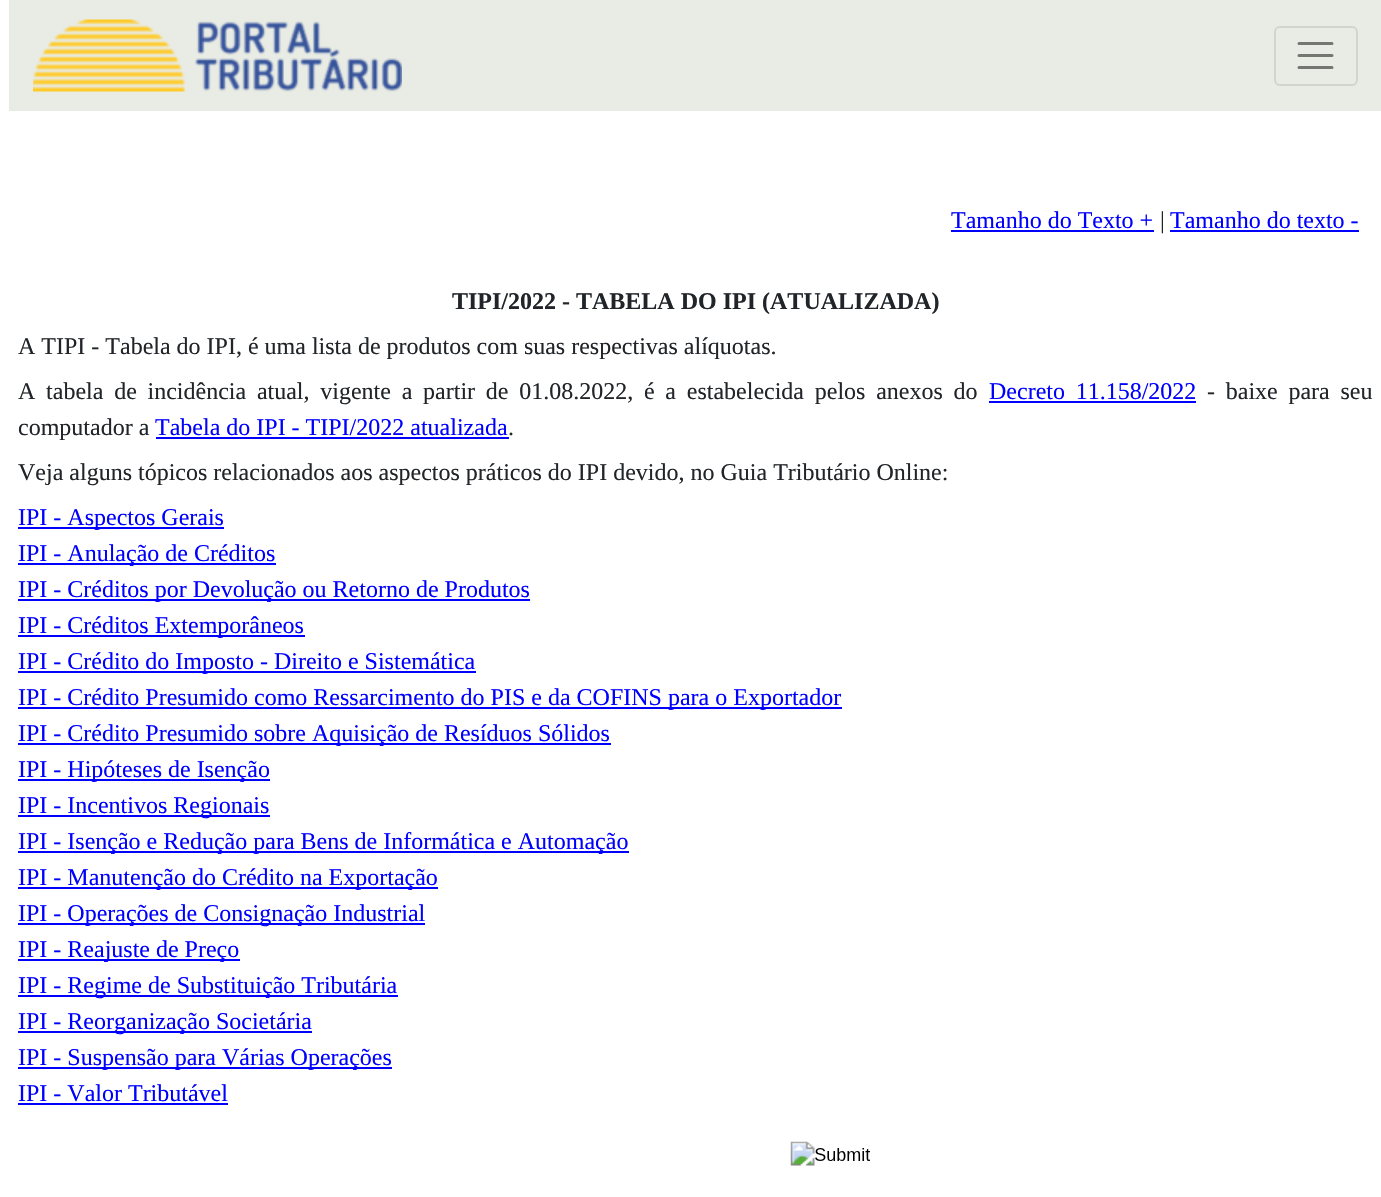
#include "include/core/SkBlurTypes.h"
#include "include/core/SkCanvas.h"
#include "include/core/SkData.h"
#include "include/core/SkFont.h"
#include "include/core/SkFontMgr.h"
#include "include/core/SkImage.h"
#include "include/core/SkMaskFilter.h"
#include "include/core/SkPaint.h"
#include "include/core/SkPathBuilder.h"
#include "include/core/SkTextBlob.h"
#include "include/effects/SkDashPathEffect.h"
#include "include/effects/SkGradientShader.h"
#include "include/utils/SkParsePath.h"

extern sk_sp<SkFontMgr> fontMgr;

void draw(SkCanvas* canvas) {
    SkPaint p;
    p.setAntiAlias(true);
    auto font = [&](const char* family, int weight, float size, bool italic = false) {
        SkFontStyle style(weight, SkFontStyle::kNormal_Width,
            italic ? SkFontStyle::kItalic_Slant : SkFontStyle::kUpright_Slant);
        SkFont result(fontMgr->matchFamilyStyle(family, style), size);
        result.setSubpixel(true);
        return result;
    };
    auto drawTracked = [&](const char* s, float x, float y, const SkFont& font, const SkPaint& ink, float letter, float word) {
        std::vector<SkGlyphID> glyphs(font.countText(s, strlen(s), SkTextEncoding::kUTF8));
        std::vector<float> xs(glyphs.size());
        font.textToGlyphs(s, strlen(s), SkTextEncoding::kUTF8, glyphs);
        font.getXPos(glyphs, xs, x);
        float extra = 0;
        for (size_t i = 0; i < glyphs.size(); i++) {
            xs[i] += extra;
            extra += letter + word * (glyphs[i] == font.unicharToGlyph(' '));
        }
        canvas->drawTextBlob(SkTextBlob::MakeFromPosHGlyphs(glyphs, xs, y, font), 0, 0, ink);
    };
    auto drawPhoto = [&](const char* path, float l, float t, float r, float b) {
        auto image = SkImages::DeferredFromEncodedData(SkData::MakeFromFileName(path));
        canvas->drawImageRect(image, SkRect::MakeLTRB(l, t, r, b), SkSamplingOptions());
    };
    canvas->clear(0xFFFFFFFF);
    p.setColor(0xFFE9ECE4);
    canvas->drawRect(SkRect::MakeLTRB(9, 0, 1381, 111), p);
    drawPhoto("media/1.png", 33, 19, 402, 92);
    p.setStyle(SkPaint::kStroke_Style);
    p.setStrokeWidth(2);
    p.setColor(0xFFD2D4CD);
    canvas->drawRoundRect(SkRect::MakeLTRB(1275, 27, 1357, 85), 5, 5, p);
    p.setStrokeWidth(3);
    p.setStrokeCap(SkPaint::kRound_Cap);
    p.setColor(0xFF757672);
    canvas->drawPath(SkPathBuilder().moveTo(1299, 43.5f).lineTo(1332, 43.5f).moveTo(1299, 55.5f).lineTo(1332, 55.5f).moveTo(1299, 67.5f).lineTo(1332, 67.5f).detach(), p);
    auto font1 = font("Liberation Serif", 400, 24);
    p.setStyle(SkPaint::kFill_Style);
    p.setColor(0xFF0000FF);
    canvas->drawString("Tamanho do Texto +", 951, 228, font1, p);
    canvas->drawRect(SkRect::MakeLTRB(951, 230, 1154, 232), p);
    p.setColor(0xFF212529);
    canvas->drawString("|", 1160, 228, font1, p);
    p.setColor(0xFF0000FF);
    canvas->drawString("Tamanho do texto -", 1170, 228, font1, p);
    canvas->drawRect(SkRect::MakeLTRB(1170, 230, 1359, 232), p);
    auto font2 = font("Liberation Serif", 700, 24);
    p.setColor(0xFF212529);
    canvas->drawString("TIPI/2022 - TABELA DO IPI (ATUALIZADA)", 452, 309, font2, p);
    canvas->drawString("A TIPI - Tabela do IPI, é uma lista de produtos com suas respectivas alíquotas.", 18, 354, font1, p);
    drawTracked("A tabela de incidência atual, vigente a partir de 01.08.2022, é a estabelecida pelos anexos do", 18, 399, font1, p, 0, 4.75f);
    p.setColor(0xFF0000FF);
    drawTracked("Decreto 11.158/2022", 989, 399, font1, p, 0, 4.75f);
    canvas->drawRect(SkRect::MakeLTRB(989, 401, 1196, 403), p);
    p.setColor(0xFF212529);
    drawTracked("- baixe para seu", 1207, 399, font1, p, 0, 4.75f);
    canvas->drawString("computador a", 18, 435, font1, p);
    p.setColor(0xFF0000FF);
    canvas->drawString("Tabela do IPI - TIPI/2022 atualizada", 155, 435, font1, p);
    canvas->drawRect(SkRect::MakeLTRB(156, 437, 509, 439), p);
    p.setColor(0xFF212529);
    canvas->drawString(".", 508, 435, font1, p);
    canvas->drawString("Veja alguns tópicos relacionados aos aspectos práticos do IPI devido, no Guia Tributário Online:", 18, 480, font1, p);
    p.setColor(0xFF0000FF);
    canvas->drawRect(SkRect::MakeLTRB(18, 527, 224, 529), p);
    canvas->drawString("IPI - Aspectos Gerais", 18, 525, font1, p);
    canvas->drawRect(SkRect::MakeLTRB(18, 563, 276, 565), p);
    canvas->drawString("IPI - Anulação de Créditos", 18, 561, font1, p);
    canvas->drawRect(SkRect::MakeLTRB(18, 599, 530, 601), p);
    canvas->drawString("IPI - Créditos por Devolução ou Retorno de Produtos", 18, 597, font1, p);
    canvas->drawRect(SkRect::MakeLTRB(18, 635, 305, 637), p);
    canvas->drawString("IPI - Créditos Extemporâneos", 18, 633, font1, p);
    canvas->drawRect(SkRect::MakeLTRB(18, 671, 476, 673), p);
    canvas->drawString("IPI - Crédito do Imposto - Direito e Sistemática", 18, 669, font1, p);
    canvas->drawRect(SkRect::MakeLTRB(18, 707, 842, 709), p);
    canvas->drawString("IPI - Crédito Presumido como Ressarcimento do PIS e da COFINS para o Exportador", 18, 705, font1, p);
    canvas->drawRect(SkRect::MakeLTRB(18, 743, 611, 745), p);
    canvas->drawString("IPI - Crédito Presumido sobre Aquisição de Resíduos Sólidos", 18, 741, font1, p);
    canvas->drawRect(SkRect::MakeLTRB(18, 779, 270, 781), p);
    canvas->drawString("IPI - Hipóteses de Isenção", 18, 777, font1, p);
    canvas->drawRect(SkRect::MakeLTRB(18, 815, 270, 817), p);
    canvas->drawString("IPI - Incentivos Regionais", 18, 813, font1, p);
    canvas->drawRect(SkRect::MakeLTRB(18, 851, 629, 853), p);
    canvas->drawString("IPI - Isenção e Redução para Bens de Informática e Automação", 18, 849, font1, p);
    canvas->drawRect(SkRect::MakeLTRB(18, 887, 438, 889), p);
    canvas->drawString("IPI - Manutenção do Crédito na Exportação", 18, 885, font1, p);
    canvas->drawRect(SkRect::MakeLTRB(18, 923, 425, 925), p);
    canvas->drawString("IPI - Operações de Consignação Industrial", 18, 921, font1, p);
    canvas->drawRect(SkRect::MakeLTRB(18, 959, 240, 961), p);
    canvas->drawString("IPI - Reajuste de Preço", 18, 957, font1, p);
    canvas->drawRect(SkRect::MakeLTRB(18, 995, 398, 997), p);
    canvas->drawString("IPI - Regime de Substituição Tributária", 18, 993, font1, p);
    canvas->drawRect(SkRect::MakeLTRB(18, 1031, 312, 1033), p);
    canvas->drawString("IPI - Reorganização Societária", 18, 1029, font1, p);
    canvas->drawRect(SkRect::MakeLTRB(18, 1067, 392, 1069), p);
    canvas->drawString("IPI - Suspensão para Várias Operações", 18, 1065, font1, p);
    canvas->drawString("IPI - Valor Tributável", 18, 1101, font1, p);
    canvas->drawRect(SkRect::MakeLTRB(18, 1103, 228, 1105), p);
    drawPhoto("media/2.png", 790, 1141, 870, 1166);
}
